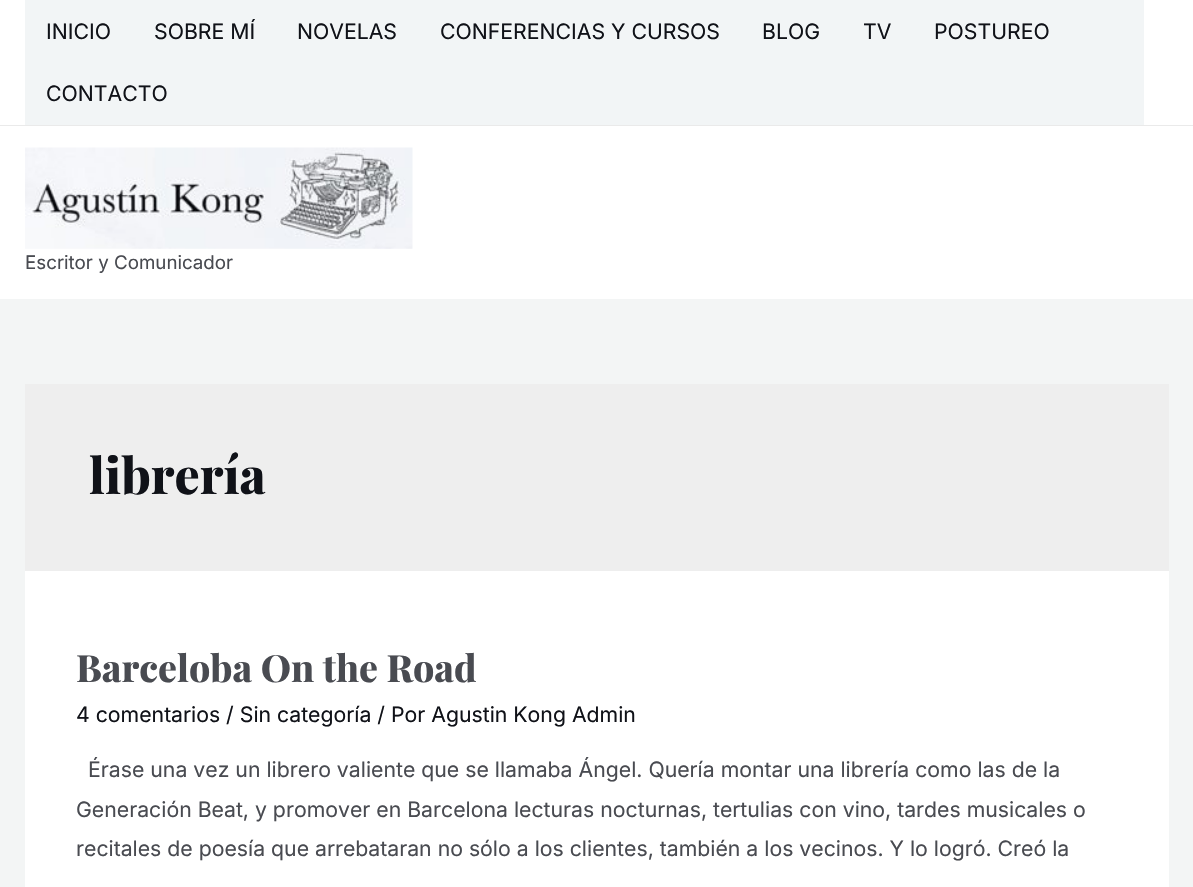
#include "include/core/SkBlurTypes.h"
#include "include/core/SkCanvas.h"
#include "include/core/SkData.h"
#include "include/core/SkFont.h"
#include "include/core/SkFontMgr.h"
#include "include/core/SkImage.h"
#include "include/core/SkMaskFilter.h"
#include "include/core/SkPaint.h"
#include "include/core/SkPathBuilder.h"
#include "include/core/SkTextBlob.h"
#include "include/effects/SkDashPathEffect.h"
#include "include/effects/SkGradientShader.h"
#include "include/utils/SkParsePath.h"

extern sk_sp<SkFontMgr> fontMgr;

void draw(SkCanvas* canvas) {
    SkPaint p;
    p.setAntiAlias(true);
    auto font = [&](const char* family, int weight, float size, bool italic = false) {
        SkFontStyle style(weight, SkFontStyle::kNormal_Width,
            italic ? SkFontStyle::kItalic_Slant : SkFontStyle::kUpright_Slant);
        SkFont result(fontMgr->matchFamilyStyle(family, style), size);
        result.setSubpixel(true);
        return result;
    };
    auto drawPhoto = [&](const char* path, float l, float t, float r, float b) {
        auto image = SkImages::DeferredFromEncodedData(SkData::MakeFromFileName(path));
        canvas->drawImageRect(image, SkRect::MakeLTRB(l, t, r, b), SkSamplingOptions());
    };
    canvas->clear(0xFFF3F5F5);
    {
        const struct { float l, t, r, b; SkColor color; } items[] = {
            {0, 0, 1193, 125, 0xFFFFFFFF},
            {0, 125, 1193, 126, 0xFFEAEAEA},
            {25, 0, 1144, 125, 0xFFF2F5F6},
        };
        for (auto [l, t, r, b, color] : items) {
            p.setColor(color);
            canvas->drawRect(SkRect::MakeLTRB(l, t, r, b), p);
        }
    }
    auto font1 = font("Inter", 400, 21.25f);
    p.setColor(0xFF101218);
    {
        const struct { const char* s; float x, y; } items[] = {
            {"INICIO", 46, 39},
            {"SOBRE MÍ", 154, 39},
            {"NOVELAS", 297, 39},
            {"CONFERENCIAS Y CURSOS", 440, 39},
            {"BLOG", 762, 39},
            {"TV", 863, 39},
            {"POSTUREO", 934, 39},
            {"CONTACTO", 46, 101},
        };
        for (auto [s, x, y] : items) {
            canvas->drawString(s, x, y, font1, p);
        }
    }
    p.setColor(0xFFFFFFFF);
    canvas->drawRect(SkRect::MakeLTRB(0, 126, 1193, 299), p);
    drawPhoto("media/1.png", 25, 147, 413, 249);
    auto font2 = font("Inter", 400, 18.75f);
    p.setColor(0xFF494B51);
    canvas->drawString("Escritor y Comunicador", 25, 269, font2, p);
    p.setColor(0xFFEEEEEE);
    canvas->drawRect(SkRect::MakeLTRB(25, 384, 1169, 571), p);
    auto font3 = font("Playfair Display", 800, 50);
    p.setColor(0xFF101218);
    canvas->drawString("librería", 89, 494, font3, p);
    p.setColor(0xFFFFFFFF);
    canvas->drawRect(SkRect::MakeLTRB(25, 571, 1169, 887), p);
    auto font4 = font("Playfair Display", 800, 37.5f);
    p.setColor(0xFF494B51);
    canvas->drawString("Barceloba On the Road", 76, 682, font4, p);
    p.setColor(0xFF101218);
    canvas->drawString("4 comentarios / Sin categoría / Por Agustin Kong Admin", 76, 722, font1, p);
    p.setColor(0xFF494B51);
    {
        const struct { const char* s; float x, y; } items[] = {
            {"Érase una vez un librero valiente que se llamaba Ángel. Quería montar una librería como las de la", 88, 777},
            {"Generación Beat, y promover en Barcelona lecturas nocturnas, tertulias con vino, tardes musicales o", 76, 817},
            {"recitales de poesía que arrebataran no sólo a los clientes, también a los vecinos. Y lo logró. Creó la", 76, 856},
        };
        for (auto [s, x, y] : items) {
            canvas->drawString(s, x, y, font1, p);
        }
    }
}
